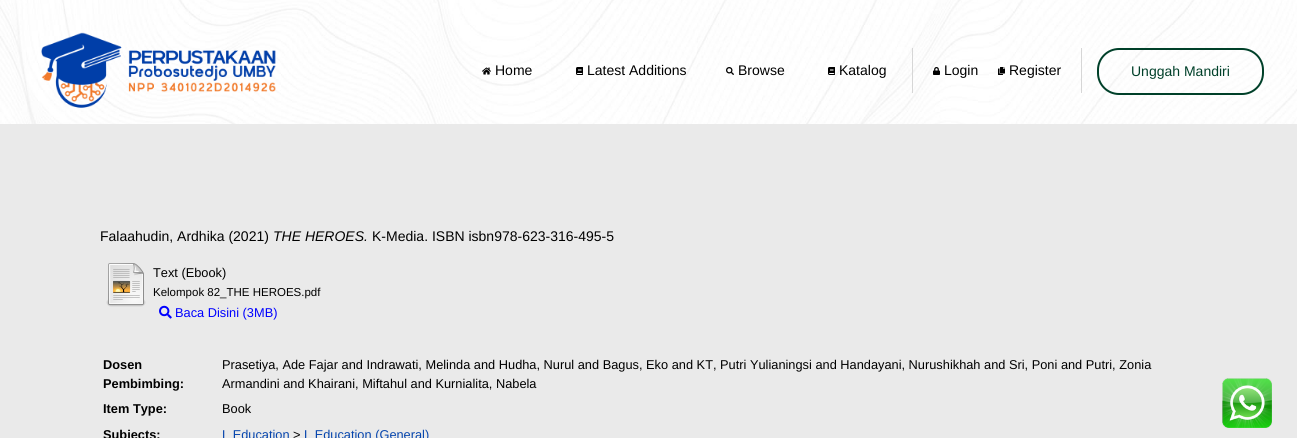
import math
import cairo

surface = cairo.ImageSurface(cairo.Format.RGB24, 1297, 438)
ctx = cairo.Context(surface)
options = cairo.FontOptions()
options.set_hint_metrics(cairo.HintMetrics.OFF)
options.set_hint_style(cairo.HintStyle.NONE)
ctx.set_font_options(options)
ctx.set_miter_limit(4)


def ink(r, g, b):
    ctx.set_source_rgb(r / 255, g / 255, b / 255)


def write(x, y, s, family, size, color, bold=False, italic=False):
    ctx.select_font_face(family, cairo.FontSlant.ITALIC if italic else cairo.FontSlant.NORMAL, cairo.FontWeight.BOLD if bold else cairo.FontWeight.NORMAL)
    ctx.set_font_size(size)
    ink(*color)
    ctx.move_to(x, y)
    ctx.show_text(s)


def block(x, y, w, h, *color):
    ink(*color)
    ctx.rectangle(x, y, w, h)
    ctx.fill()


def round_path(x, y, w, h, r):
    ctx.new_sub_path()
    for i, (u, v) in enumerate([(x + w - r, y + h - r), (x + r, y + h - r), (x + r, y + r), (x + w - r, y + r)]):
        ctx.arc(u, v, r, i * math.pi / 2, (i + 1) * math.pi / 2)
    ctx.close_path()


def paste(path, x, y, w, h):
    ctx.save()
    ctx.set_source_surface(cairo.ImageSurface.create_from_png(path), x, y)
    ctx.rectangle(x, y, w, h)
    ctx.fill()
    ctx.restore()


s1 = dict(family="Liberation Sans", size=14, color=(0, 0, 0))
s2 = dict(family="Liberation Sans", size=14, color=(0, 64, 41))
s3 = dict(family="Liberation Sans", size=14, color=(0, 0, 0), italic=True)
s4 = dict(family="Liberation Sans", size=12.8, color=(0, 0, 0))
s5 = dict(family="Liberation Sans", size=11.5, color=(0, 0, 0))
s6 = dict(family="Liberation Sans", size=12.8, color=(0, 0, 255))
s7 = dict(family="Liberation Sans", size=12.8, color=(0, 0, 0), bold=True)
s8 = dict(family="Liberation Sans", size=12.8, color=(6, 69, 173))

ink(234, 234, 234)
ctx.paint()
paste("pic1.png", 0, 0, 1297, 124)
paste("pic2.png", 41, 32, 235, 76)
paste("pic3.png", 482, 67, 9, 8)
write(495, 75, "Home", **s1)
paste("pic4.png", 576, 67, 7, 8)
write(587, 75, "Latest Additions", **s1)
paste("pic5.png", 726, 67, 8, 8)
write(738, 75, "Browse", **s1)
paste("pic6.png", 828, 67, 7, 8)
write(839, 75, "Katalog", **s1)
block(1081, 48, 1, 45, 214, 214, 214)
block(912, 48, 1, 45, 214, 214, 214)
paste("pic7.png", 933, 67, 7, 8)
write(944, 75, "Login", **s1)
paste("pic8.png", 998, 67, 7, 8)
write(1009, 75, "Register", **s1)
round_path(1098, 49, 165, 45, 21)
ink(0, 64, 41)
ctx.stroke()
write(1131, 76, "Unggah Mandiri", **s2)
write(100, 241, "Falaahudin, Ardhika (2021)", **s1)
write(273, 241, "THE HEROES.", **s3)
write(372, 241, "K-Media. ISBN isbn978-623-316-495-5", **s1)
paste("pic9.png", 106, 263, 40, 44)
write(153, 277, "Text (Ebook)", **s4)
write(153, 296, "Kelompok 82_THE HEROES.pdf", **s5)
paste("pic10.png", 159, 305, 13, 14)
write(175, 317, "Baca Disini (3MB)", **s6)
write(103, 369, "Dosen", **s7)
write(103, 388, "Pembimbing:", **s7)
write(222, 369, "Prasetiya, Ade Fajar and Indrawati, Melinda and Hudha, Nurul and Bagus, Eko and KT, Putri Yulianingsi and Handayani, Nurushikhah and Sri, Poni and Putri, Zonia", **s4)
write(222, 388, "Armandini and Khairani, Miftahul and Kurnialita, Nabela", **s4)
write(103, 413, "Item Type:", **s7)
write(222, 413, "Book", **s4)
write(103, 439, "Subjects:", **s7)
write(222, 439, "L Education", **s8)
write(293, 439, ">", **s4)
write(304, 439, "L Education (General)", **s8)
paste("pic11.png", 1222, 378, 50, 50)
surface.write_to_png("screenshot.png")
